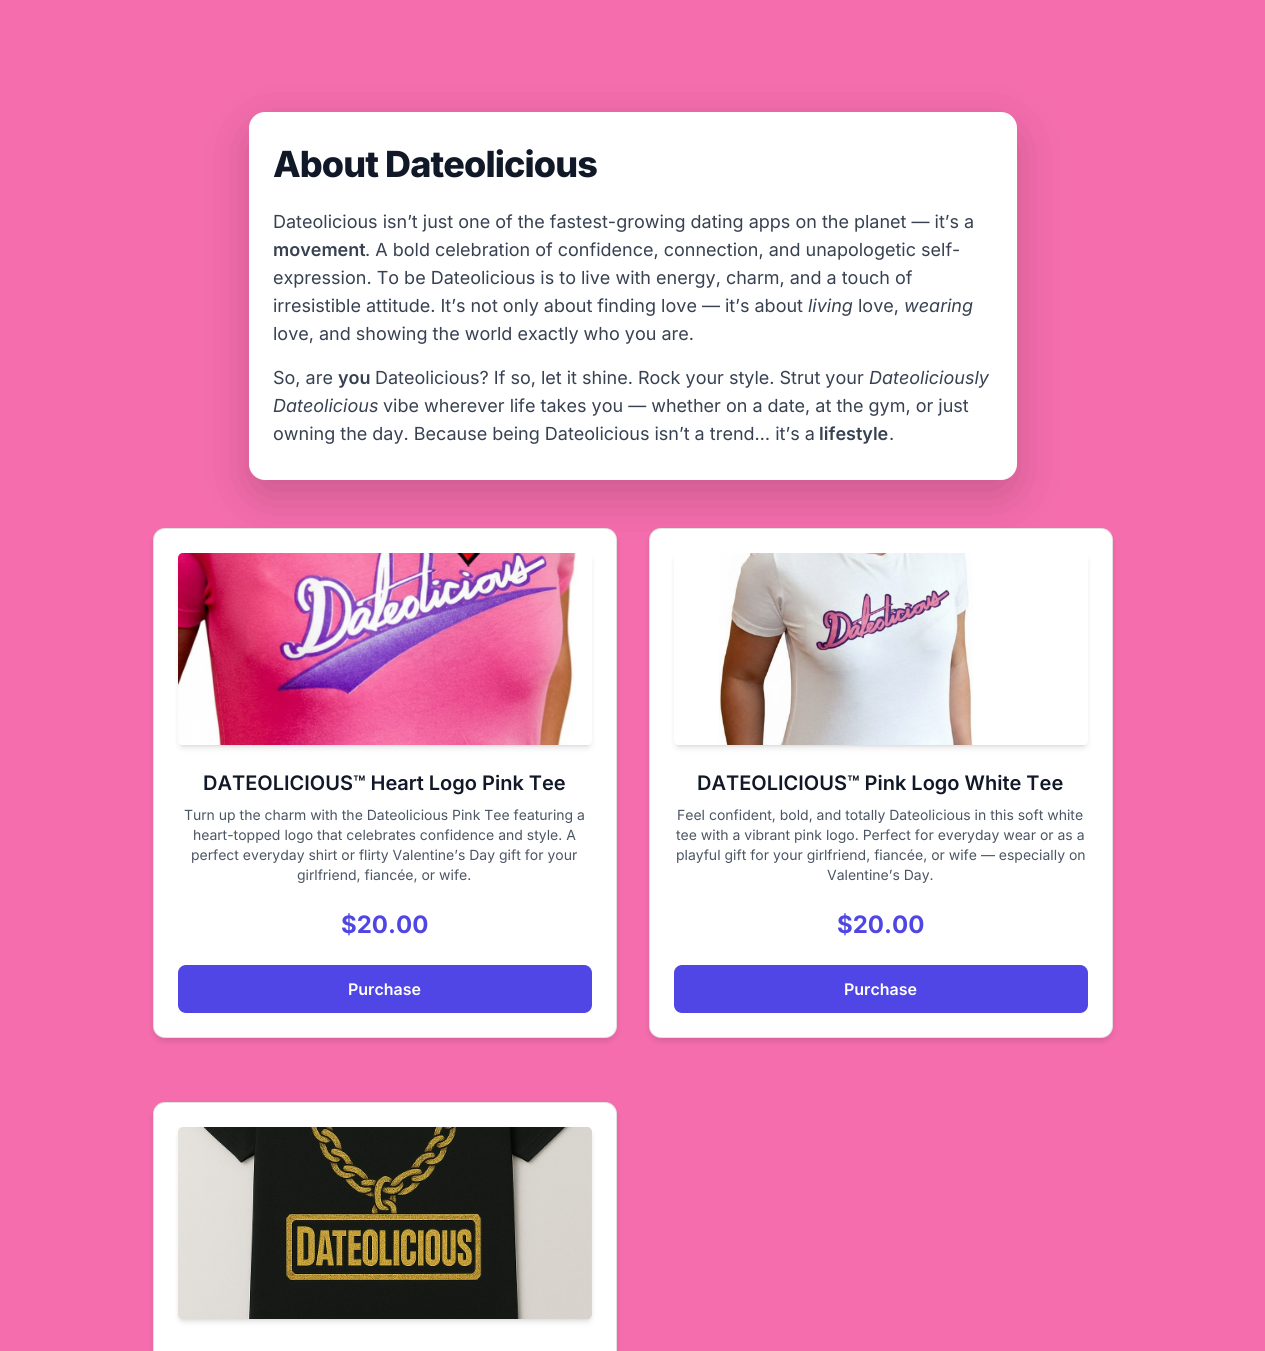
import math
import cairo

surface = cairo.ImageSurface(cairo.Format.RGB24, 1265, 1351)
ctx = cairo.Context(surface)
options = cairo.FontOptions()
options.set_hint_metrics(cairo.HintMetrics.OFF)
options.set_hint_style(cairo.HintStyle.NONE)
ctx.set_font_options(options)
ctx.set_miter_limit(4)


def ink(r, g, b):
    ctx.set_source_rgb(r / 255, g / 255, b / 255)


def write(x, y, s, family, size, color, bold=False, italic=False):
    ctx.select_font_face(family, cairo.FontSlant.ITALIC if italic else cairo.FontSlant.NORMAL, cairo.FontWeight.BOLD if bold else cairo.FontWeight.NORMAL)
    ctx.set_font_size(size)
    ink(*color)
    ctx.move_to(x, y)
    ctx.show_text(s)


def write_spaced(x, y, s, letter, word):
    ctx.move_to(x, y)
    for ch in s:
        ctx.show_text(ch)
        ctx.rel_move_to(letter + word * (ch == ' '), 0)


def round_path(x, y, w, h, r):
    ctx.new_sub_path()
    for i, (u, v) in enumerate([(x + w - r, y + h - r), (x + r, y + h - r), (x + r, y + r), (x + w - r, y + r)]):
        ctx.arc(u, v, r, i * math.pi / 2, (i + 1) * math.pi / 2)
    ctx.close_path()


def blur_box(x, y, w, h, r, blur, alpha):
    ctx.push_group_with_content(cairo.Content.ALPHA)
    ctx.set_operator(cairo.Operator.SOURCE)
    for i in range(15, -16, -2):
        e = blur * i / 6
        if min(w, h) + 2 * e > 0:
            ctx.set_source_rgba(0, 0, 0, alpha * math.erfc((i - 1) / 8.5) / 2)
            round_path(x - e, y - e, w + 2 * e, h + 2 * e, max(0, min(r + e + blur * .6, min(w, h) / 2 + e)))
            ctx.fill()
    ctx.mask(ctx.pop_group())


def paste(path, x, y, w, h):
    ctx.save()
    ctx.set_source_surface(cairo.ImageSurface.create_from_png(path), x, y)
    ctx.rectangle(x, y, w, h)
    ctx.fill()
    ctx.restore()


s1 = dict(family="Inter", size=18, color=(55, 65, 81))
s2 = dict(family="Inter SemiBold", size=18, color=(55, 65, 81))
s3 = dict(family="Inter", size=18, color=(55, 65, 81), italic=True)
s4 = dict(family="Inter SemiBold", size=20, color=(17, 24, 39))
s5 = dict(family="Inter", size=14, color=(75, 85, 99))
s6 = dict(family="Inter", size=24, color=(79, 70, 229), bold=True)
s7 = dict(family="Inter SemiBold", size=16, color=(255, 255, 255))

ink(245, 109, 173)
ctx.paint()
ink(0, 0, 0)
blur_box(249, 128, 768, 368, 16, 24, 0.18)
ink(255, 255, 255)
round_path(249, 112, 768, 368, 16)
ctx.fill()
ctx.select_font_face("Inter ExtraBold")
ctx.set_font_size(36)
ink(17, 24, 39)
write_spaced(273, 177, "About Dateolicious", -0.9, 0)
write(273, 228, "Dateolicious isn’t just one of the fastest-growing dating apps on the planet — it’s a", **s1)
write(273, 256, "movement", **s2)
write(365, 256, ". A bold celebration of confidence, connection, and unapologetic self-", **s1)
write(273, 284, "expression. To be Dateolicious is to live with energy, charm, and a touch of", **s1)
write(273, 312, "irresistible attitude. It’s not only about finding love — it’s about", **s1)
write(808, 312, "living", **s3)
write(858, 312, "love,", **s1)
write(904, 312, "wearing", **s3)
write(273, 340, "love, and showing the world exactly who you are.", **s1)
write(273, 384, "So, are", **s1)
write(338, 384, "you", **s2)
write(375, 384, "Dateolicious? If so, let it shine. Rock your style. Strut your", **s1)
write(869, 384, "Dateoliciously", **s3)
write(273, 412, "Dateolicious", **s3)
write(383, 412, "vibe wherever life takes you — whether on a date, at the gym, or just", **s1)
write(273, 440, "owning the day. Because being Dateolicious isn’t a trend… it’s a", **s1)
write(819, 440, "lifestyle", **s2)
write(889, 440, ".", **s1)
ink(0, 0, 0)
blur_box(153, 532, 464, 510, 12, 3, 0.1)
ink(255, 255, 255)
round_path(153, 528, 464, 510, 12)
ctx.fill()
round_path(153.5, 528.5, 463, 509, 11.5)
ctx.set_source_rgba(0, 0, 0, 0.12)
ctx.set_line_width(1)
ctx.stroke()
ctx.save()
ctx.rectangle(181, 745, 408, 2)
ctx.clip()
ink(0, 0, 0)
blur_box(180, 557, 410, 188, 3, 2, 0.1)
ctx.restore()
ctx.save()
ctx.set_fill_rule(cairo.FillRule.EVEN_ODD)
ctx.new_path()
ctx.move_to(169, 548)
ctx.line_to(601, 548)
ctx.line_to(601, 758)
ctx.line_to(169, 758)
ctx.close_path()
ctx.move_to(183, 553)
ctx.line_to(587, 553)
ctx.curve_to(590, 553, 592, 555, 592, 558)
ctx.line_to(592, 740)
ctx.curve_to(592, 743, 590, 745, 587, 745)
ctx.line_to(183, 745)
ctx.curve_to(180, 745, 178, 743, 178, 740)
ctx.line_to(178, 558)
ctx.curve_to(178, 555, 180, 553, 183, 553)
ctx.close_path()
ctx.clip()
ink(0, 0, 0)
blur_box(179, 558, 412, 190, 4, 3, 0.1)
ctx.restore()
paste("pic1.png", 178, 553, 399, 192)
write(203, 790, "DATEOLICIOUS™ Heart Logo Pink Tee", **s4)
write(184, 820, "Turn up the charm with the Dateolicious Pink Tee featuring a", **s5)
write(193, 840, "heart-topped logo that celebrates confidence and style. A", **s5)
write(191, 860, "perfect everyday shirt or flirty Valentine’s Day gift for your", **s5)
write(297, 880, "girlfriend, fiancée, or wife.", **s5)
write(341, 933, "$20.00", **s6)
round_path(178, 965, 414, 48, 8)
ctx.fill()
write(348, 995, "Purchase", **s7)
ink(0, 0, 0)
blur_box(649, 532, 464, 510, 12, 3, 0.1)
ink(255, 255, 255)
round_path(649, 528, 464, 510, 12)
ctx.fill()
round_path(649.5, 528.5, 463, 509, 11.5)
ctx.set_source_rgba(0, 0, 0, 0.12)
ctx.stroke()
ctx.save()
ctx.rectangle(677, 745, 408, 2)
ctx.clip()
ink(0, 0, 0)
blur_box(676, 557, 410, 188, 3, 2, 0.1)
ctx.restore()
ctx.save()
ctx.set_fill_rule(cairo.FillRule.EVEN_ODD)
ctx.new_path()
ctx.move_to(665, 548)
ctx.line_to(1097, 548)
ctx.line_to(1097, 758)
ctx.line_to(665, 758)
ctx.close_path()
ctx.move_to(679, 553)
ctx.line_to(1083, 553)
ctx.curve_to(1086, 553, 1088, 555, 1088, 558)
ctx.line_to(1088, 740)
ctx.curve_to(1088, 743, 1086, 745, 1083, 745)
ctx.line_to(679, 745)
ctx.curve_to(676, 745, 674, 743, 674, 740)
ctx.line_to(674, 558)
ctx.curve_to(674, 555, 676, 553, 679, 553)
ctx.close_path()
ctx.clip()
ink(0, 0, 0)
blur_box(675, 558, 412, 190, 4, 3, 0.1)
ctx.restore()
paste("pic2.png", 719, 553, 254, 192)
write(697, 790, "DATEOLICIOUS™ Pink Logo White Tee", **s4)
write(677, 820, "Feel confident, bold, and totally Dateolicious in this soft white", **s5)
write(676, 840, "tee with a vibrant pink logo. Perfect for everyday wear or as a", **s5)
write(676, 860, "playful gift for your girlfriend, fiancée, or wife — especially on", **s5)
write(827, 880, "Valentine’s Day.", **s5)
write(837, 933, "$20.00", **s6)
round_path(674, 965, 414, 48, 8)
ctx.fill()
write(844, 995, "Purchase", **s7)
ink(0, 0, 0)
blur_box(153, 1106, 464, 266, 12, 3, 0.1)
ink(255, 255, 255)
round_path(153, 1102, 464, 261, 12)
ctx.fill()
round_path(153.5, 1102.5, 463, 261, 11.5)
ctx.set_source_rgba(0, 0, 0, 0.12)
ctx.stroke()
ink(0, 0, 0)
blur_box(180, 1131, 410, 188, 3, 2, 0.1)
blur_box(179, 1132, 412, 190, 4, 3, 0.1)
paste("pic3.png", 178, 1127, 414, 192)
surface.write_to_png("screenshot.png")
